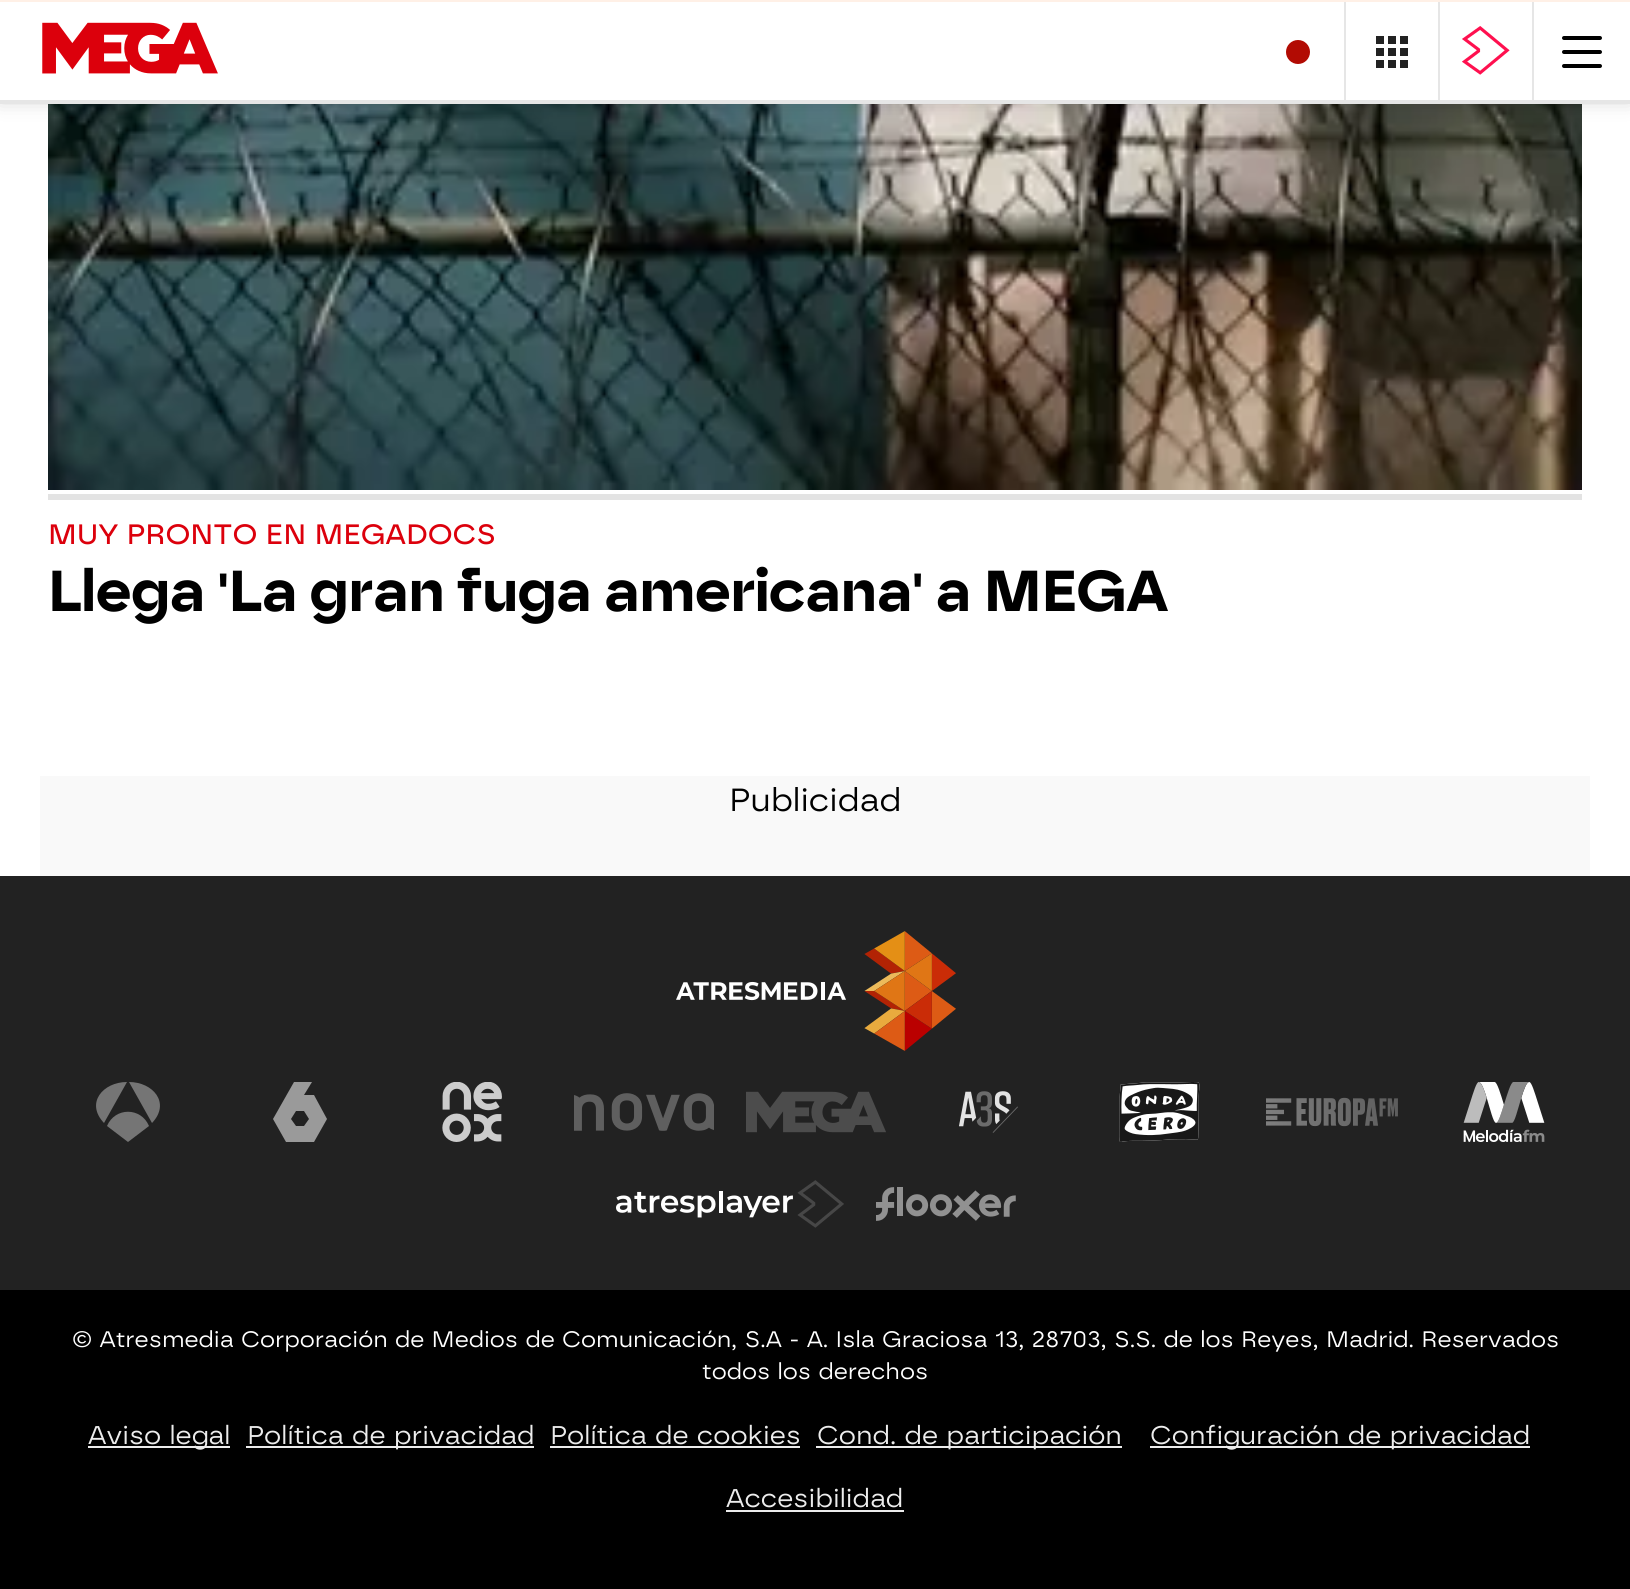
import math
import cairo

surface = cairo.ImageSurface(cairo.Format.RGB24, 1630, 1589)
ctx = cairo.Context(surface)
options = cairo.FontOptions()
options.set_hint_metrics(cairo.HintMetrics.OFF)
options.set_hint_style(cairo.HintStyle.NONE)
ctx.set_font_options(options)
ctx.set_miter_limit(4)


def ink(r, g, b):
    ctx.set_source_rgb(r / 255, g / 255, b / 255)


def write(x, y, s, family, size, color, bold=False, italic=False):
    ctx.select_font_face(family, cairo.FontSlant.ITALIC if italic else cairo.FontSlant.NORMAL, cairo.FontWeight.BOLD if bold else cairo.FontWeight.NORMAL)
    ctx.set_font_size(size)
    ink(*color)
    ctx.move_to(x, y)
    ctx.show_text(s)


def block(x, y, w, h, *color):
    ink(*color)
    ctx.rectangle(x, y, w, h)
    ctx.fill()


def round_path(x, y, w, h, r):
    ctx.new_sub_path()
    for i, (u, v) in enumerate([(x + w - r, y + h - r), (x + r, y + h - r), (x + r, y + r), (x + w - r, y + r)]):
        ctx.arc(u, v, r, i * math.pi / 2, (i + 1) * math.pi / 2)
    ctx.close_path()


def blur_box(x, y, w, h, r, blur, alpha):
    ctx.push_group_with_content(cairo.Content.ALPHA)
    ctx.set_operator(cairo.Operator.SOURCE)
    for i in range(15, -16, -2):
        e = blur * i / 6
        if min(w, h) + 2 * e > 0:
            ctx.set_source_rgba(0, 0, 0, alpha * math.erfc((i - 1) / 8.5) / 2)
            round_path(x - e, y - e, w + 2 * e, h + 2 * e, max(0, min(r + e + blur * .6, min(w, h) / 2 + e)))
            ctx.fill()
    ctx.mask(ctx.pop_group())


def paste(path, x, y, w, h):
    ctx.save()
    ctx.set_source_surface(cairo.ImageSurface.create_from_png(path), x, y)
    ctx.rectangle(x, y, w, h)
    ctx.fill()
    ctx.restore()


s1 = dict(family="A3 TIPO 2 Medium", size=28, color=(220, 0, 12))
s2 = dict(family="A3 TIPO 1", size=57.6, color=(0, 0, 0), bold=True)
s3 = dict(family="A3 TIPO 2", size=32, color=(0, 0, 0))
s4 = dict(family="A3 TIPO 2", size=22.4, color=(255, 255, 255))
s5 = dict(family="A3 TIPO 2", size=25.6, color=(236, 236, 236))

ink(255, 255, 255)
ctx.paint()
paste("pic4.png", 48, 104, 1534, 386)
ink(0, 0, 0)
blur_box(0, 0, 1630, 100, 0, 10, 0.2)
block(0, 0, 1630, 2, 255, 240, 230)
block(0, 2, 1630, 98, 255, 255, 255)
block(0, 100, 1630, 4, 230, 230, 230)
paste("pic1.png", 42, 22, 176, 52)
block(1344, 2, 2, 98, 230, 230, 230)
ink(178, 11, 3)
ctx.arc(1298, 52, 12, 0, 2 * math.pi)
ctx.fill()
paste("pic2.png", 1376, 36, 32, 32)
block(1532, 2, 2, 98, 230, 230, 230)
block(1438, 2, 2, 98, 230, 230, 230)
paste("pic3.png", 1462, 26, 48, 49)
ink(0, 0, 0)
round_path(1562, 36, 40, 4, 2)
ctx.fill()
round_path(1562, 50, 40, 4, 2)
ctx.fill()
round_path(1562, 64, 40, 4, 2)
ctx.fill()
block(48, 494, 1534, 6, 227, 227, 227)
write(48, 544, "MUY PRONTO EN MEGADOCS", **s1)
write(48, 611, "Llega 'La gran fuga americana' a MEGA", **s2)
block(40, 776, 1550, 100, 249, 249, 249)
write(729, 811, "Publicidad", **s3)
block(0, 876, 1630, 414, 34, 34, 34)
paste("pic5.png", 676, 931, 280, 120)
ink(117, 117, 117)
ctx.new_path()
ctx.move_to(127, 1082)
ctx.curve_to(103, 1082, 85, 1103, 104, 1123)
ctx.close_path()
ctx.fill()
ctx.new_path()
ctx.move_to(152, 1123)
ctx.curve_to(171, 1103, 153, 1082, 129, 1082)
ctx.close_path()
ctx.fill()
ctx.new_path()
ctx.move_to(149, 1126)
ctx.line_to(128, 1142)
ctx.line_to(107, 1126)
ctx.curve_to(115, 1107, 141, 1107, 149, 1126)
ctx.close_path()
ctx.fill()
ink(154, 154, 154)
ctx.new_path()
ctx.move_to(314, 1095)
ctx.line_to(304, 1095)
ctx.line_to(312, 1082)
ctx.line_to(294, 1082)
ctx.line_to(273, 1119)
ctx.line_to(286, 1142)
ctx.line_to(314, 1142)
ctx.line_to(327, 1119)
ctx.close_path()
ctx.move_to(304, 1126)
ctx.line_to(296, 1126)
ctx.line_to(291, 1119)
ctx.line_to(296, 1111)
ctx.line_to(304, 1111)
ctx.line_to(309, 1119)
ctx.close_path()
ctx.fill()
paste("pic6.png", 442, 1082, 60, 60)
paste("pic7.png", 574, 1093, 140, 38)
paste("pic8.png", 746, 1091, 140, 42)
paste("pic9.png", 959, 1091, 59, 42)
paste("pic10.png", 1119, 1082, 81, 60)
paste("pic11.png", 1266, 1097, 132, 30)
paste("pic12.png", 1463, 1082, 82, 60)
paste("pic13.png", 616, 1180, 228, 48)
paste("pic14.png", 876, 1187, 140, 34)
block(0, 1290, 1630, 299, 0, 0, 0)
write(72, 1347, "© Atresmedia Corporación de Medios de Comunicación, S.A - A. Isla Graciosa 13, 28703, S.S. de los Reyes, Madrid. Reservados", **s4)
write(702, 1379, "todos los derechos", **s4)
block(88, 1446, 142, 2, 236, 236, 236)
write(88, 1444, "Aviso legal", **s5)
block(246, 1446, 288, 2, 236, 236, 236)
write(247, 1444, "Política de privacidad", **s5)
write(550, 1444, "Política de cookies", **s5)
block(550, 1446, 250, 2, 236, 236, 236)
block(816, 1446, 306, 2, 236, 236, 236)
write(817, 1444, "Cond. de participación", **s5)
block(1150, 1446, 380, 2, 236, 236, 236)
write(1150, 1444, "Configuración de privacidad", **s5)
write(726, 1507, "Accesibilidad", **s5)
block(726, 1510, 178, 2, 236, 236, 236)
surface.write_to_png("screenshot.png")
